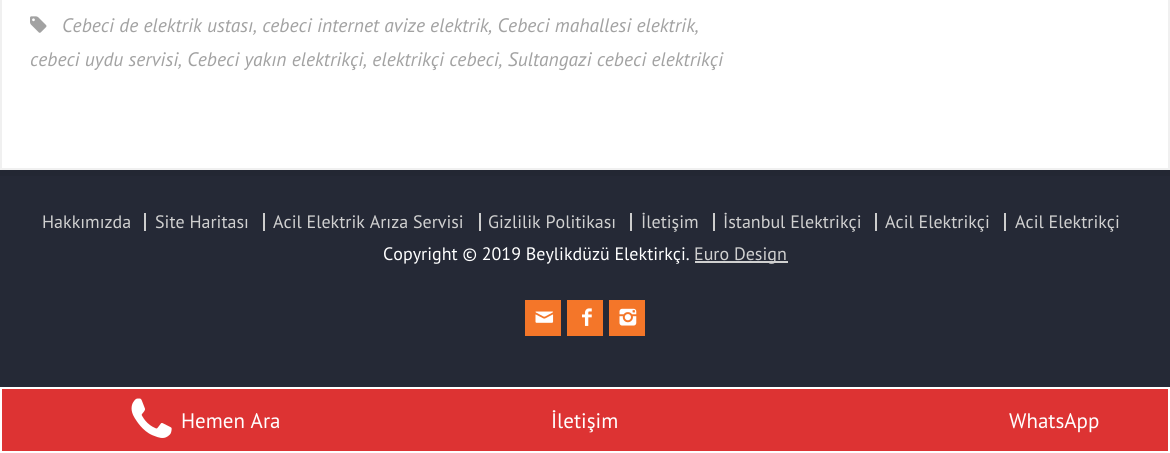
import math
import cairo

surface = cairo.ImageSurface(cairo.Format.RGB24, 1170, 453)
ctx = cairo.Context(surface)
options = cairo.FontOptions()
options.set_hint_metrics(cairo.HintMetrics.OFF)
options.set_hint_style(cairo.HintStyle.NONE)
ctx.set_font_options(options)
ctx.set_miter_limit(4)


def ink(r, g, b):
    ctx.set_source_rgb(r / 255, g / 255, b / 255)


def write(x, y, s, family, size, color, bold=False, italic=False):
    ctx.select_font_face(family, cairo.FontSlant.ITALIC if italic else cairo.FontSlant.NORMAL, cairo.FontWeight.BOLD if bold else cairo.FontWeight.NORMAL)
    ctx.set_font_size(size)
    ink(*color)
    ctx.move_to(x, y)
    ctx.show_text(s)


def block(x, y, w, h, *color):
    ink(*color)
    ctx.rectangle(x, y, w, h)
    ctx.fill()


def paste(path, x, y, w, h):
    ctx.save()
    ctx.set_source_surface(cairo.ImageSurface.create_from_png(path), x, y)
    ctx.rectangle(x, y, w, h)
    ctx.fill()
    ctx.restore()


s1 = dict(family="PT Sans", size=19.5, color=(162, 162, 162), italic=True)
s2 = dict(family="PT Sans", size=18, color=(208, 208, 208))
s3 = dict(family="PT Sans", size=18, color=(255, 255, 255))
s4 = dict(family="PT Sans", size=21, color=(255, 255, 255))

ink(37, 41, 54)
ctx.paint()
ink(255, 255, 255)
ctx.rectangle(1, -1, 1168, 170)
ctx.fill_preserve()
ink(240, 240, 240)
ctx.stroke()
paste("pic1.png", 30, 16, 17, 17)
write(62, 32, "Cebeci de elektrik ustası, cebeci internet avize elektrik, Cebeci mahallesi elektrik,", **s1)
write(30, 66, "cebeci uydu servisi, Cebeci yakın elektrikçi, elektrikçi cebeci, Sultangazi cebeci elektrikçi", **s1)
block(0, 170, 1170, 6, 35, 39, 51)
write(42, 228, "Hakkımızda", **s2)
block(144, 213, 2, 18, 205, 205, 205)
write(155, 228, "Site Haritası", **s2)
block(263, 213, 2, 18, 205, 205, 205)
write(273, 228, "Acil Elektrik Arıza Servisi", **s2)
block(479, 213, 2, 18, 205, 205, 205)
write(488, 228, "Gizlilik Politikası", **s2)
block(630, 213, 2, 18, 205, 205, 205)
write(641, 228, "İletişim", **s2)
block(713, 213, 2, 18, 205, 205, 205)
write(723, 228, "İstanbul Elektrikçi", **s2)
block(875, 213, 2, 18, 205, 205, 205)
write(885, 228, "Acil Elektrikçi", **s2)
block(1004, 213, 2, 18, 205, 205, 205)
write(1015, 228, "Acil Elektrikçi", **s2)
write(383, 260, "Copyright © 2019 Beylikdüzü Elektirkçi.", **s3)
block(695, 261, 93, 2, 208, 208, 208)
write(694, 260, "Euro Design", **s2)
block(525, 300, 36, 36, 244, 118, 41)
paste("pic2.png", 535, 311, 19, 12)
block(567, 300, 36, 36, 244, 118, 41)
paste("pic3.png", 582, 308, 10, 18)
block(609, 300, 36, 36, 244, 118, 41)
paste("pic4.png", 619, 308, 18, 18)
ink(221, 51, 51)
ctx.rectangle(1, 388, 1168, 64)
ctx.fill_preserve()
ink(255, 255, 255)
ctx.stroke()
paste("pic5.png", 131, 398, 41, 40)
write(181, 428, "Hemen Ara", **s4)
write(551, 428, "İletişim", **s4)
write(1009, 428, "WhatsApp", **s4)
surface.write_to_png("screenshot.png")
